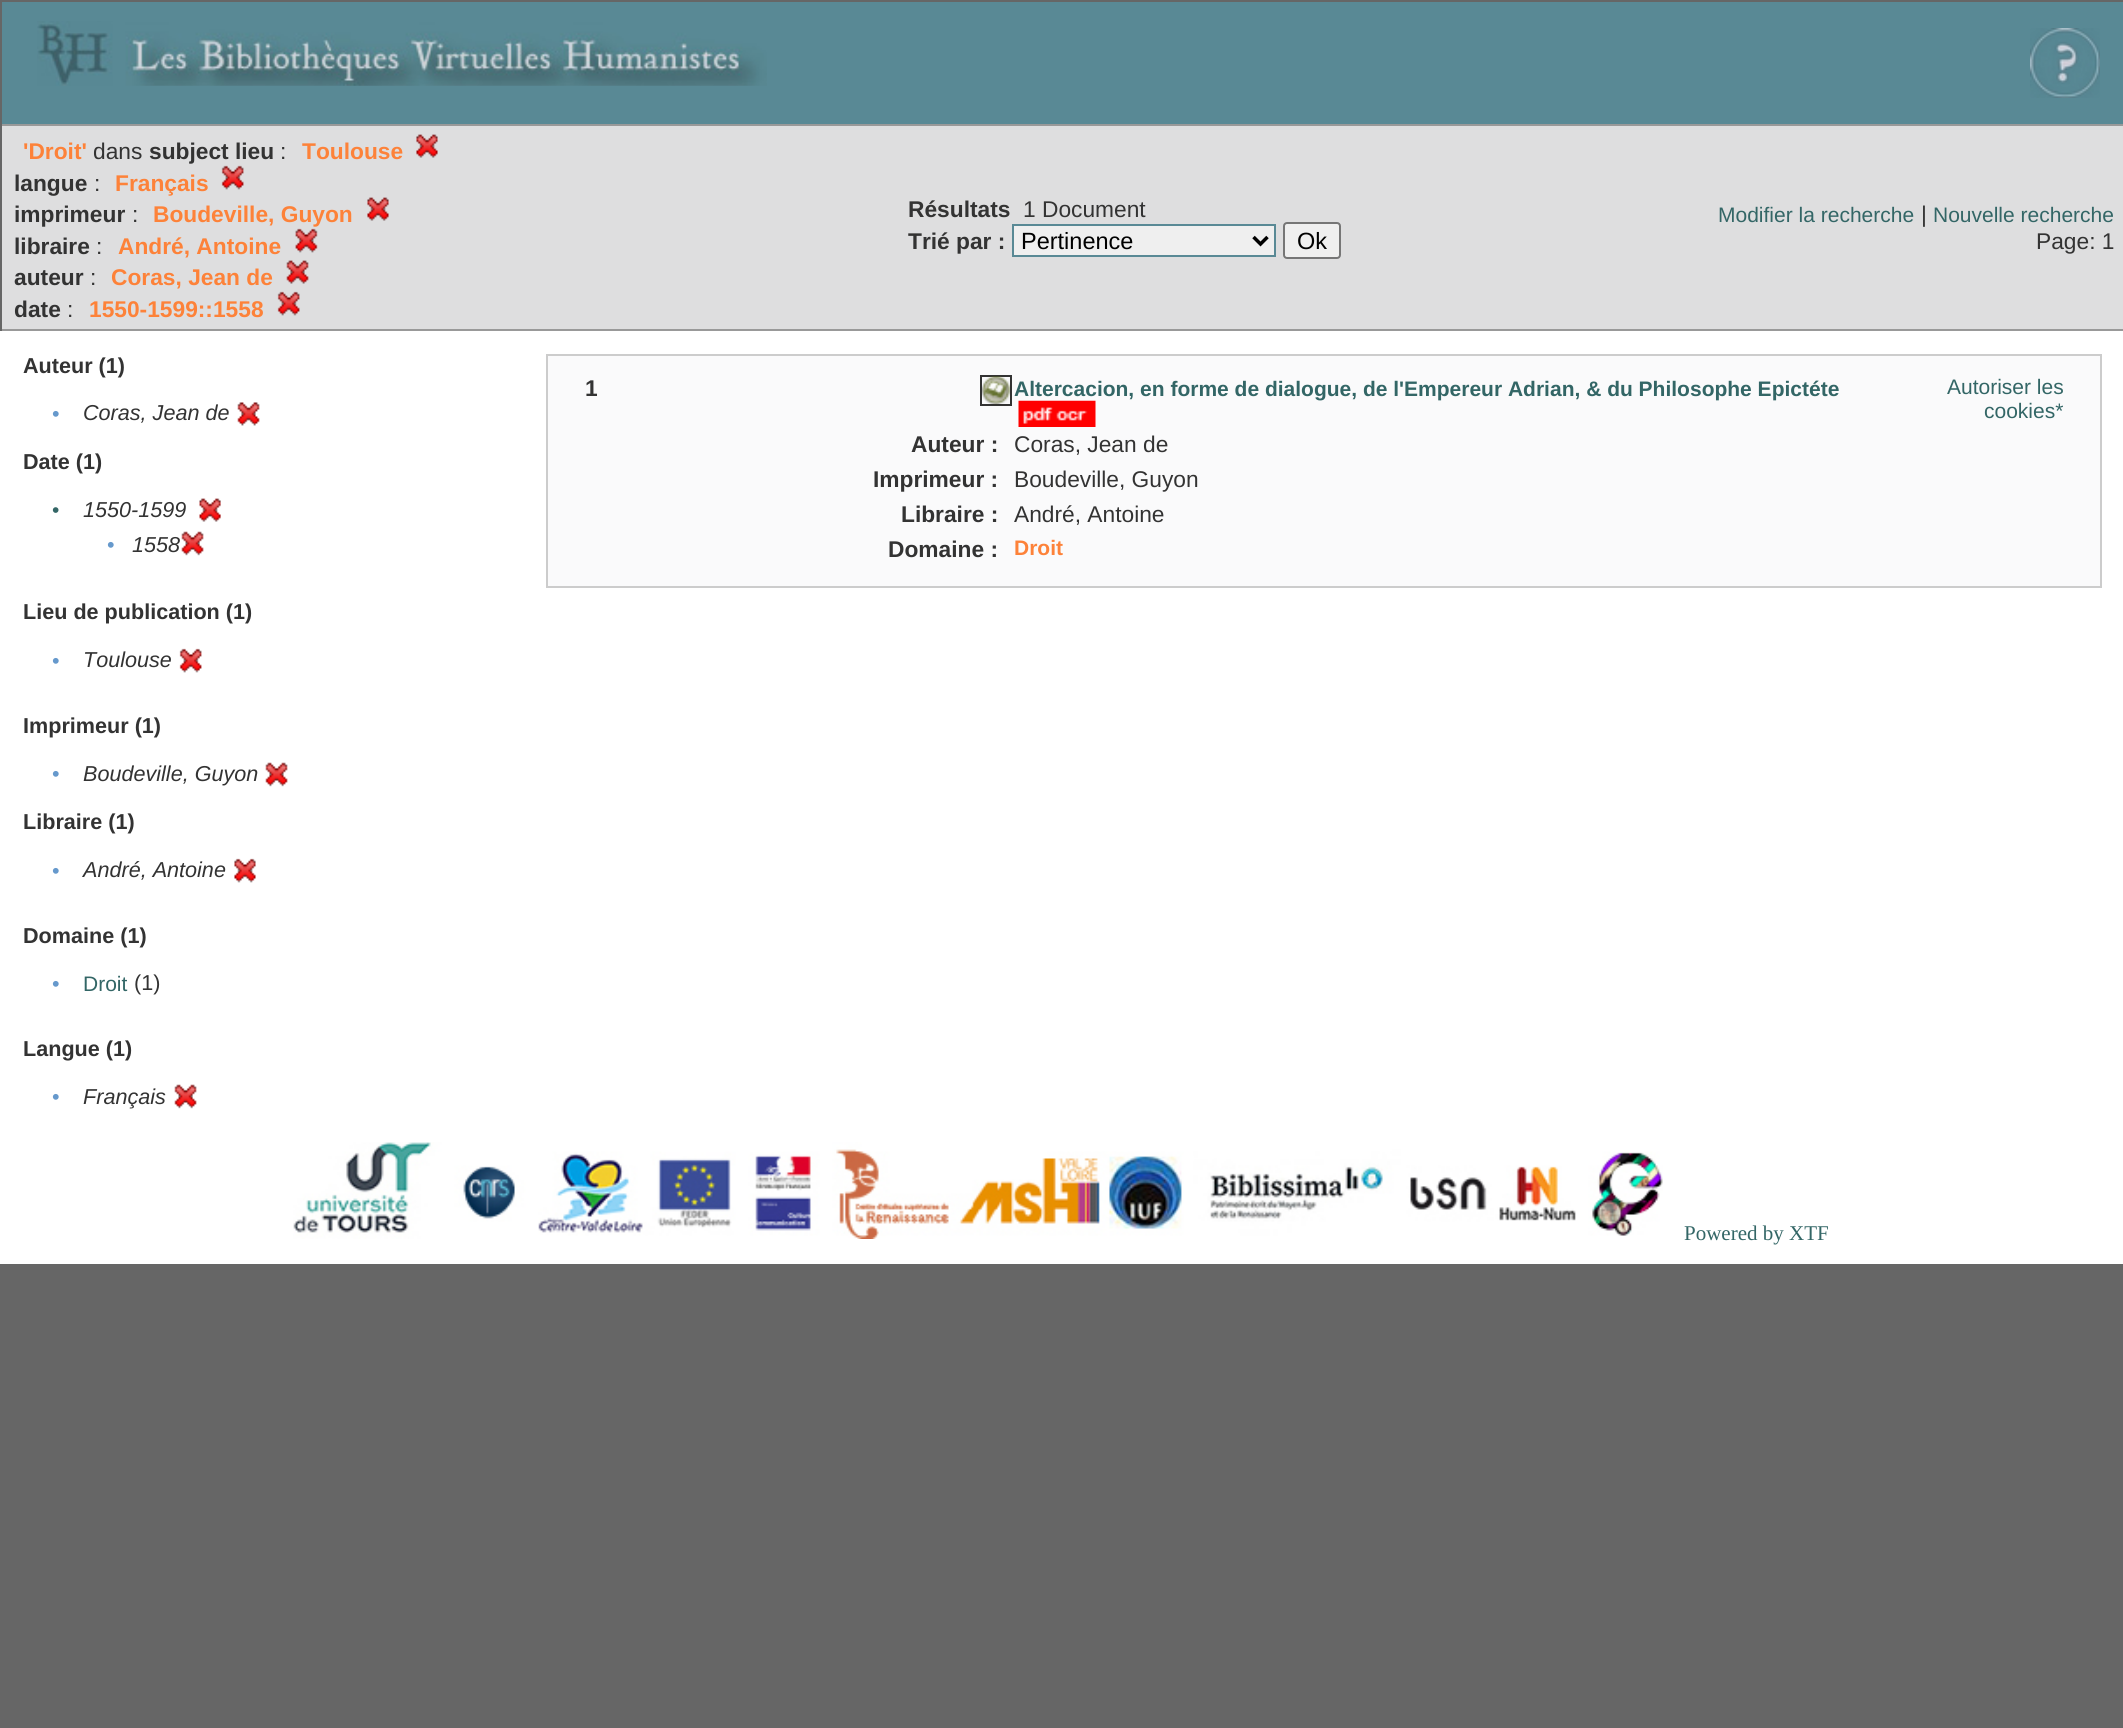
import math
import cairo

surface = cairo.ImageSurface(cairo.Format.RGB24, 2123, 1728)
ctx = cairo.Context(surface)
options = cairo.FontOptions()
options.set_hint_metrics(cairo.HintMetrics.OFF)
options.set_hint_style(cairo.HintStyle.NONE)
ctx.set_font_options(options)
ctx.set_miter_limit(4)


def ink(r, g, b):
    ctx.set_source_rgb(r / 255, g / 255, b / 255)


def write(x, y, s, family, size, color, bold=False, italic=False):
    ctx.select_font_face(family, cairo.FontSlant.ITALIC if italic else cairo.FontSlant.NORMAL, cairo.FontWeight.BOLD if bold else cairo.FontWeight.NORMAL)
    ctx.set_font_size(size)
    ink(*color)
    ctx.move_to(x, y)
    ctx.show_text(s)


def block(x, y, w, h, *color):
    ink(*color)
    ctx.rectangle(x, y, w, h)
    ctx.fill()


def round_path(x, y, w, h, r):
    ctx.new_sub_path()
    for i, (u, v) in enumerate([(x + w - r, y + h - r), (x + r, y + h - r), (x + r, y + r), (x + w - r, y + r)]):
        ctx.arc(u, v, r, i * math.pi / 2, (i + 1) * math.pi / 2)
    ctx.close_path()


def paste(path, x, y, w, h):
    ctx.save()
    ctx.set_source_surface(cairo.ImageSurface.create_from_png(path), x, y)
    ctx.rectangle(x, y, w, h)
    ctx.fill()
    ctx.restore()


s1 = dict(family="Liberation Sans", size=22.75, color=(253, 130, 57), bold=True)
s2 = dict(family="Liberation Sans", size=22.75, color=(51, 51, 51))
s3 = dict(family="Liberation Sans", size=22.75, color=(51, 51, 51), bold=True)
s4 = dict(family="Liberation Sans", size=23.5, color=(0, 0, 0))
s5 = dict(family="Liberation Sans", size=21, color=(51, 102, 102))
s6 = dict(family="Liberation Sans", size=21.6, color=(51, 51, 51), bold=True)
s7 = dict(family="Liberation Sans", size=21.6, color=(102, 153, 204))
s8 = dict(family="Liberation Sans", size=21.6, color=(51, 51, 51), italic=True)
s9 = dict(family="Liberation Sans", size=21.6, color=(51, 51, 51))
s10 = dict(family="Liberation Sans", size=21, color=(51, 102, 102), bold=True)
s11 = dict(family="Liberation Sans", size=21, color=(253, 130, 57), bold=True)
s12 = dict(family="Liberation Serif", size=21, color=(51, 102, 102))

ink(102, 102, 102)
ctx.paint()
block(2, 2, 2121, 122, 89, 137, 149)
paste("pic1.png", 37, 21, 730, 65)
paste("pic2.png", 2030, 28, 70, 70)
block(2, 126, 2121, 203, 222, 222, 223)
block(0, 124, 2123, 2, 153, 153, 153)
block(0, 329, 2123, 2, 153, 153, 153)
block(0, 124, 2, 207, 102, 102, 102)
write(23, 159, "'Droit'", **s1)
write(93, 159, "dans", **s2)
write(149, 159, "subject lieu", **s3)
write(280, 159, ":", **s2)
write(302, 159, "Toulouse", **s1)
paste("pic3.png", 416, 134, 22, 24)
write(14, 191, "langue", **s3)
write(94, 191, ":", **s2)
write(115, 191, "Français", **s1)
paste("pic4.png", 221, 165, 23, 25)
write(14, 222, "imprimeur", **s3)
write(132, 222, ":", **s2)
write(153, 222, "Boudeville, Guyon", **s1)
paste("pic3.png", 367, 197, 22, 24)
write(14, 254, "libraire", **s3)
write(96, 254, ":", **s2)
write(118, 254, "André, Antoine", **s1)
paste("pic5.png", 295, 228, 23, 25)
write(14, 285, "auteur", **s3)
write(90, 285, ":", **s2)
write(111, 285, "Coras, Jean de", **s1)
paste("pic6.png", 286, 260, 23, 24)
write(14, 317, "date", **s3)
write(67, 317, ":", **s2)
write(89, 317, "1550-1599::1558", **s1)
paste("pic7.png", 277, 291, 23, 25)
write(908, 217, "Résultats", **s3)
write(1023, 217, "1 Document", **s2)
write(908, 249, "Trié par :", **s3)
ink(239, 239, 239)
ctx.rectangle(1013, 225, 262, 31)
ctx.fill_preserve()
ink(89, 137, 149)
ctx.stroke()
ctx.new_path()
ctx.move_to(1253.5, 237)
ctx.line_to(1260.5, 244)
ctx.line_to(1267.5, 237)
ink(0, 0, 0)
ctx.set_line_width(3.5)
ctx.stroke()
write(1021, 249, "Pertinence", **s4)
ink(239, 239, 239)
round_path(1284, 223, 56, 35, 3)
ctx.fill_preserve()
ink(118, 118, 118)
ctx.set_line_width(2)
ctx.stroke()
write(1297, 249, "Ok", **s4)
write(1718, 222, "Modifier la recherche", **s5)
write(1921, 222, "|", **s2)
write(1933, 222, "Nouvelle recherche", **s5)
write(2036, 249, "Page: 1", **s2)
block(0, 331, 2123, 933, 255, 255, 255)
write(23, 373, "Auteur (1)", **s6)
write(52, 421, "•", **s7)
write(83, 420, "Coras, Jean de", **s8)
paste("pic8.png", 237, 402, 23, 24)
write(23, 469, "Date (1)", **s6)
write(52, 517, "•", **s5)
write(83, 517, "1550-1599", **s8)
paste("pic9.png", 199, 498, 22, 24)
write(107, 552, "•", **s7)
write(132, 552, "1558", **s8)
paste("pic10.png", 181, 531, 23, 25)
write(23, 619, "Lieu de publication (1)", **s6)
write(52, 668, "•", **s7)
write(83, 667, "Toulouse", **s8)
paste("pic11.png", 179, 648, 23, 25)
write(23, 733, "Imprimeur (1)", **s6)
write(52, 781, "•", **s7)
write(83, 781, "Boudeville, Guyon", **s8)
paste("pic12.png", 265, 762, 23, 25)
write(23, 829, "Libraire (1)", **s6)
write(52, 878, "•", **s7)
write(83, 877, "André, Antoine", **s8)
paste("pic13.png", 234, 858, 22, 25)
write(23, 943, "Domaine (1)", **s6)
write(52, 991, "•", **s7)
write(83, 991, "Droit", **s5)
write(134, 990, "(1)", **s9)
write(23, 1056, "Langue (1)", **s6)
write(52, 1104, "•", **s7)
write(83, 1104, "Français", **s8)
paste("pic10.png", 174, 1084, 23, 25)
ink(250, 250, 251)
ctx.rectangle(547, 355, 1554, 232)
ctx.fill_preserve()
ink(204, 204, 204)
ctx.stroke()
write(585, 396, "1", **s3)
ctx.rectangle(981, 376, 30, 29)
ctx.stroke()
paste("pic14.png", 982, 376, 28, 29)
write(1014, 396, "Altercacion, en forme de dialogue, de l'Empereur Adrian, & du Philosophe Epictéte", **s10)
paste("pic15.png", 1018, 400, 78, 27)
write(1947, 394, "Autoriser les", **s5)
write(1984, 418, "cookies*", **s5)
write(911, 452, "Auteur :", **s3)
write(1014, 452, "Coras, Jean de", **s2)
write(873, 487, "Imprimeur :", **s3)
write(1014, 487, "Boudeville, Guyon", **s2)
write(901, 522, "Libraire :", **s3)
write(1014, 522, "André, Antoine", **s2)
write(888, 557, "Domaine :", **s3)
write(1014, 555, "Droit", **s11)
paste("pic16.png", 293, 1142, 1370, 97)
write(1684, 1240, "Powered by XTF", **s12)
surface.write_to_png("screenshot.png")
